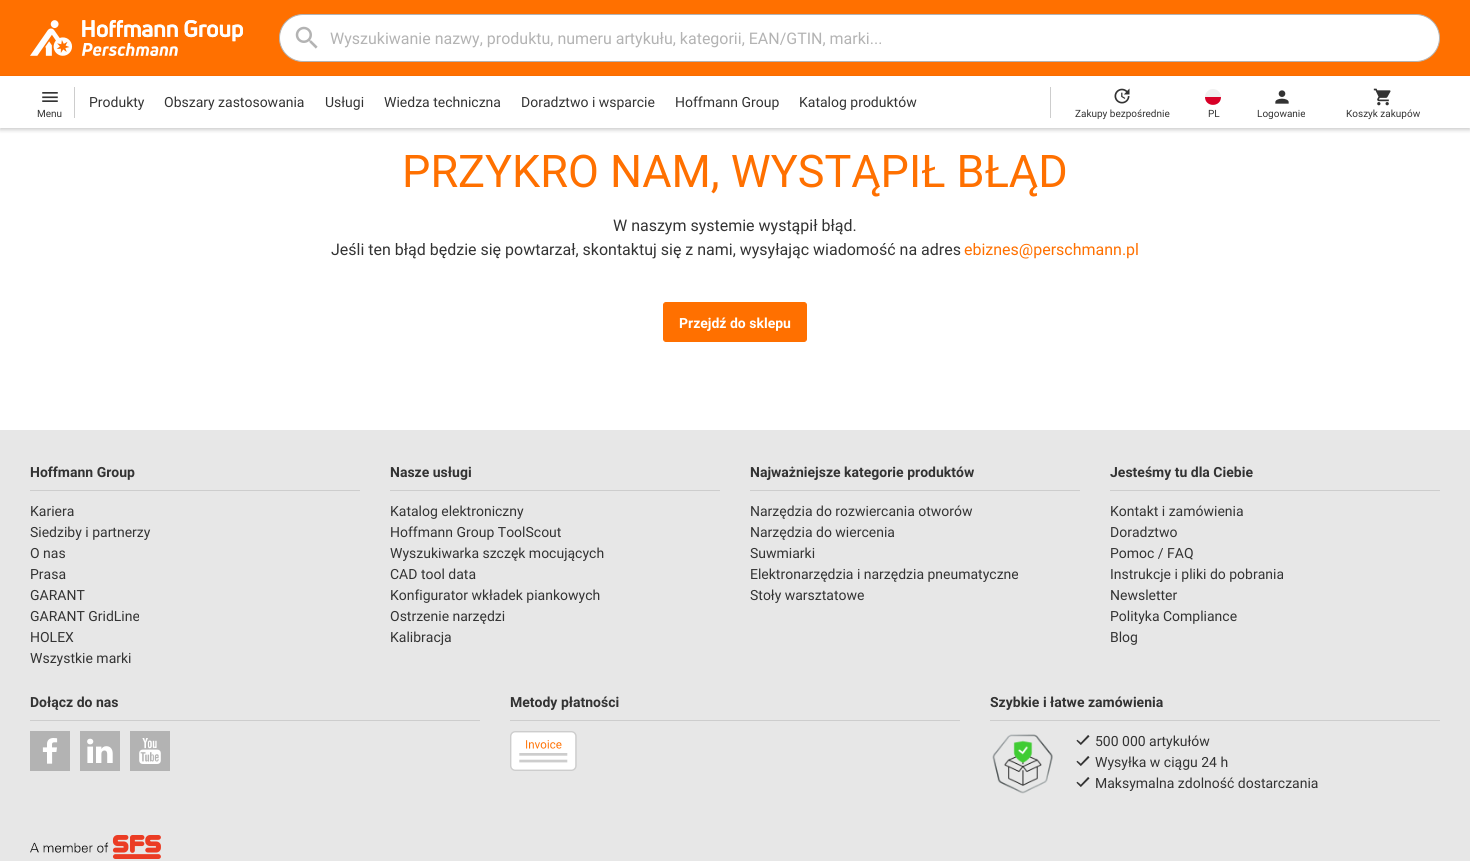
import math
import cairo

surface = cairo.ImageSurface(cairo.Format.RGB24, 1470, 861)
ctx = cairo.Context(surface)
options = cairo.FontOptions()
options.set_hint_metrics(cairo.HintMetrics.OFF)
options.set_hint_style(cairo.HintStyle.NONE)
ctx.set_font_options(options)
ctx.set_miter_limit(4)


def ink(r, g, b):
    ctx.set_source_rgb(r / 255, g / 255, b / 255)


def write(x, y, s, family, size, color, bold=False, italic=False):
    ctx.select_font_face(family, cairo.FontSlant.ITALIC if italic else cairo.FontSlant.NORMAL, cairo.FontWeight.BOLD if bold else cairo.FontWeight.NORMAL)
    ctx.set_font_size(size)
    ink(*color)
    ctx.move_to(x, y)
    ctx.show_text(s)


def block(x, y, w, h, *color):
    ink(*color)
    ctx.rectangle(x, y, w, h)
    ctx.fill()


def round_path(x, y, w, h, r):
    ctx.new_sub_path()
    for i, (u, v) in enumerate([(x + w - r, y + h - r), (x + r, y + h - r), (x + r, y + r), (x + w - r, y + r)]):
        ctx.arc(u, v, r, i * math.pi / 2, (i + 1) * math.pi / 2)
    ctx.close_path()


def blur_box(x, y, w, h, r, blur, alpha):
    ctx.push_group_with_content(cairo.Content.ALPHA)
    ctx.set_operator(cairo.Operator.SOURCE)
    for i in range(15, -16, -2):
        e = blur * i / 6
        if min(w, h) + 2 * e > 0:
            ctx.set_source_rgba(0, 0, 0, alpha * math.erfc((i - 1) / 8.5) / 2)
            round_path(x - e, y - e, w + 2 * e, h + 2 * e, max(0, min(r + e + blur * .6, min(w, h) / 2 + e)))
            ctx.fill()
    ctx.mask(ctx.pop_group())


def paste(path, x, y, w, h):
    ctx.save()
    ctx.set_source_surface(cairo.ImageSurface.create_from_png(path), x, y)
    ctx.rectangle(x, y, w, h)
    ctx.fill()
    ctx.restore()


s1 = dict(family="Roboto", size=16, color=(179, 179, 179))
s2 = dict(family="Roboto", size=14, color=(51, 51, 51))
s3 = dict(family="Roboto", size=10, color=(51, 51, 51))
s4 = dict(family="Roboto", size=45, color=(255, 112, 0))
s5 = dict(family="Roboto", size=16, color=(51, 51, 51))
s6 = dict(family="Roboto", size=16, color=(255, 112, 0))
s7 = dict(family="Roboto", size=14, color=(255, 255, 255), bold=True)
s8 = dict(family="Roboto", size=14, color=(51, 51, 51), bold=True)

ink(255, 255, 255)
ctx.paint()
block(0, 0, 1470, 76, 255, 112, 0)
paste("pic1.png", 30, 20, 213, 36)
ink(255, 255, 255)
round_path(279.5, 14.5, 1160, 47, 23.5)
ctx.fill_preserve()
ink(179, 179, 179)
ctx.set_line_width(1)
ctx.stroke()
paste("pic2.png", 295, 26, 23, 23)
write(330, 44, "Wyszukiwanie nazwy, produktu, numeru artykułu, kategorii, EAN/GTIN, marki...", **s1)
ctx.save()
ctx.set_fill_rule(cairo.FillRule.EVEN_ODD)
ctx.new_path()
ctx.move_to(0, 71)
ctx.line_to(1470, 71)
ctx.line_to(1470, 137)
ctx.line_to(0, 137)
ctx.close_path()
ctx.move_to(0, 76)
ctx.line_to(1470, 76)
ctx.line_to(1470, 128)
ctx.line_to(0, 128)
ctx.close_path()
ctx.clip()
ink(0, 0, 0)
blur_box(0, 78, 1470, 52, 0, 2, 0.2)
ctx.restore()
write(89, 107, "Produkty", **s2)
write(164, 107, "Obszary zastosowania", **s2)
write(325, 107, "Usługi", **s2)
write(384, 107, "Wiedza techniczna", **s2)
write(521, 107, "Doradztwo i wsparcie", **s2)
write(675, 107, "Hoffmann Group", **s2)
write(799, 107, "Katalog produktów", **s2)
paste("pic3.png", 42, 92, 16, 10)
write(37, 117, "Menu", **s3)
block(74, 87, 1, 31, 205, 205, 205)
block(1050, 87, 1, 31, 205, 205, 205)
paste("pic4.png", 1114, 88, 16, 16)
write(1075, 117, "Zakupy bezpośrednie", **s3)
ink(240, 240, 240)
ctx.new_path()
ctx.arc(1213, 97, 8, 0, 2 * math.pi)
ctx.fill()
ink(216, 0, 39)
ctx.new_path()
ctx.move_to(1221, 97)
ctx.curve_to(1221, 107.5, 1205, 107.5, 1205, 97)
ctx.fill()
write(1208, 117, "PL", **s3)
paste("pic5.png", 1275, 90, 14, 14)
write(1257, 117, "Logowanie", **s3)
paste("pic6.png", 1373, 88, 18, 18)
write(1346, 117, "Koszyk zakupów", **s3)
write(402, 187, "PRZYKRO NAM, WYSTĄPIŁ BŁĄD", **s4)
write(613, 231, "W naszym systemie wystąpił błąd.", **s5)
write(331, 255, "Jeśli ten błąd będzie się powtarzał, skontaktuj się z nami, wysyłając wiadomość na adres", **s5)
write(964, 255, "ebiznes@perschmann.pl", **s6)
round_path(663.5, 302.5, 143, 39, 2.5)
ctx.fill_preserve()
ctx.stroke()
write(679, 328, "Przejdź do sklepu", **s7)
block(0, 430, 1470, 431, 231, 231, 231)
block(30, 490, 330, 1, 205, 205, 205)
write(30, 477, "Hoffmann Group", **s8)
write(30, 516, "Kariera", **s2)
write(30, 537, "Siedziby i partnerzy", **s2)
write(30, 558, "O nas", **s2)
write(30, 579, "Prasa", **s2)
write(30, 600, "GARANT", **s2)
write(30, 621, "GARANT GridLine", **s2)
write(30, 642, "HOLEX", **s2)
write(30, 663, "Wszystkie marki", **s2)
block(390, 490, 330, 1, 205, 205, 205)
write(390, 477, "Nasze usługi", **s8)
write(390, 516, "Katalog elektroniczny", **s2)
write(390, 537, "Hoffmann Group ToolScout", **s2)
write(390, 558, "Wyszukiwarka szczęk mocujących", **s2)
write(390, 579, "CAD tool data", **s2)
write(390, 600, "Konfigurator wkładek piankowych", **s2)
write(390, 621, "Ostrzenie narzędzi", **s2)
write(390, 642, "Kalibracja", **s2)
block(750, 490, 330, 1, 205, 205, 205)
write(750, 477, "Najważniejsze kategorie produktów", **s8)
write(750, 516, "Narzędzia do rozwiercania otworów", **s2)
write(750, 537, "Narzędzia do wiercenia", **s2)
write(750, 558, "Suwmiarki", **s2)
write(750, 579, "Elektronarzędzia i narzędzia pneumatyczne", **s2)
write(750, 600, "Stoły warsztatowe", **s2)
block(1110, 490, 330, 1, 205, 205, 205)
write(1110, 477, "Jesteśmy tu dla Ciebie", **s8)
write(1110, 516, "Kontakt i zamówienia", **s2)
write(1110, 537, "Doradztwo", **s2)
write(1110, 558, "Pomoc / FAQ", **s2)
write(1110, 579, "Instrukcje i pliki do pobrania", **s2)
write(1110, 600, "Newsletter", **s2)
write(1110, 621, "Polityka Compliance", **s2)
write(1110, 642, "Blog", **s2)
block(30, 720, 450, 1, 205, 205, 205)
write(30, 707, "Dołącz do nas", **s8)
paste("pic7.png", 30, 731, 40, 40)
paste("pic8.png", 80, 731, 40, 40)
paste("pic9.png", 130, 731, 40, 40)
block(510, 720, 450, 1, 205, 205, 205)
write(510, 707, "Metody płatności", **s8)
paste("pic10.png", 510, 731, 67, 40)
block(990, 720, 450, 1, 205, 205, 205)
write(990, 707, "Szybkie i łatwe zamówienia", **s8)
paste("pic11.png", 992, 734, 61, 60)
paste("pic12.png", 1076, 735, 14, 10)
write(1095, 746, "500 000 artykułów", **s2)
paste("pic12.png", 1076, 756, 14, 10)
write(1095, 767, "Wysyłka w ciągu 24 h", **s2)
paste("pic12.png", 1076, 777, 14, 10)
write(1095, 788, "Maksymalna zdolność dostarczania", **s2)
paste("pic13.png", 30, 835, 131, 24)
surface.write_to_png("screenshot.png")
